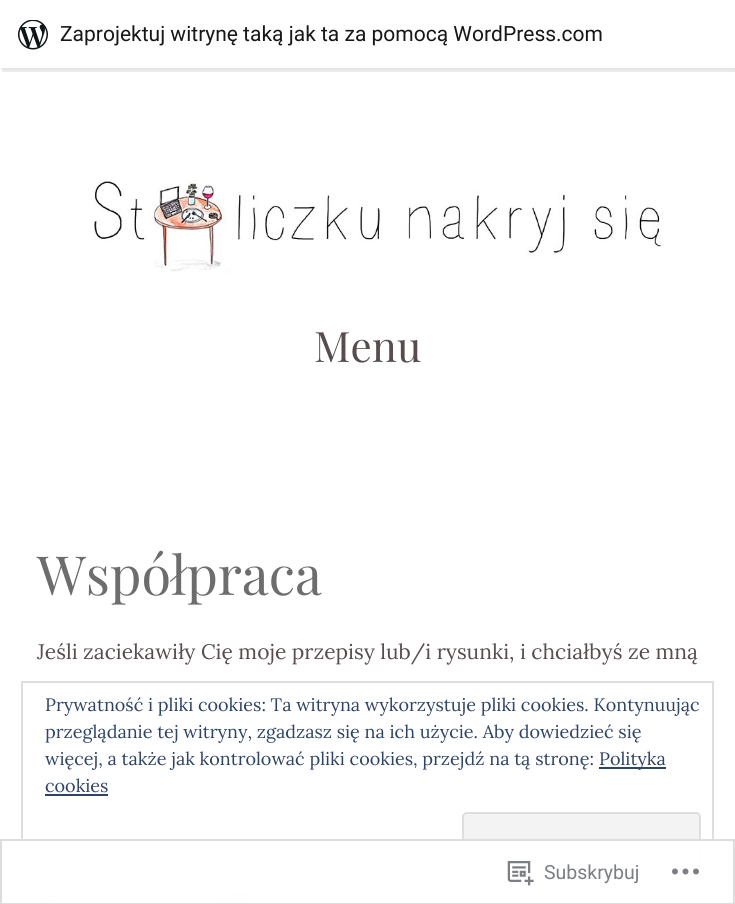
import math
import cairo

surface = cairo.ImageSurface(cairo.Format.RGB24, 735, 904)
ctx = cairo.Context(surface)
options = cairo.FontOptions()
options.set_hint_metrics(cairo.HintMetrics.OFF)
options.set_hint_style(cairo.HintStyle.NONE)
ctx.set_font_options(options)
ctx.set_miter_limit(4)


def ink(r, g, b):
    ctx.set_source_rgb(r / 255, g / 255, b / 255)


def write(x, y, s, family, size, color, bold=False, italic=False):
    ctx.select_font_face(family, cairo.FontSlant.ITALIC if italic else cairo.FontSlant.NORMAL, cairo.FontWeight.BOLD if bold else cairo.FontWeight.NORMAL)
    ctx.set_font_size(size)
    ink(*color)
    ctx.move_to(x, y)
    ctx.show_text(s)


def block(x, y, w, h, *color):
    ink(*color)
    ctx.rectangle(x, y, w, h)
    ctx.fill()


def round_path(x, y, w, h, r):
    ctx.new_sub_path()
    for i, (u, v) in enumerate([(x + w - r, y + h - r), (x + r, y + h - r), (x + r, y + r), (x + w - r, y + r)]):
        ctx.arc(u, v, r, i * math.pi / 2, (i + 1) * math.pi / 2)
    ctx.close_path()


def blur_box(x, y, w, h, r, blur, alpha):
    ctx.push_group_with_content(cairo.Content.ALPHA)
    ctx.set_operator(cairo.Operator.SOURCE)
    for i in range(15, -16, -2):
        e = blur * i / 6
        if min(w, h) + 2 * e > 0:
            ctx.set_source_rgba(0, 0, 0, alpha * math.erfc((i - 1) / 8.5) / 2)
            round_path(x - e, y - e, w + 2 * e, h + 2 * e, max(0, min(r + e + blur * .6, min(w, h) / 2 + e)))
            ctx.fill()
    ctx.mask(ctx.pop_group())


def paste(path, x, y, w, h):
    ctx.save()
    ctx.set_source_surface(cairo.ImageSurface.create_from_png(path), x, y)
    ctx.rectangle(x, y, w, h)
    ctx.fill()
    ctx.restore()


s1 = dict(family="Roboto", size=21, color=(23, 23, 23))
s2 = dict(family="Playfair Display", size=42, color=(87, 77, 77))
s3 = dict(family="Playfair Display", size=54, color=(109, 109, 109))
s4 = dict(family="Lora", size=21, color=(87, 77, 77))
s5 = dict(family="Lora", size=18, color=(46, 68, 103))
s6 = dict(family="Roboto", size=19.5, color=(123, 127, 132))

ink(255, 255, 255)
ctx.paint()
ink(0, 0, 0)
blur_box(0, 2, 735, 67, 0, 1.5, 0.05)
ctx.set_source_rgba(0, 0, 0, 0.08)
ctx.new_path()
ctx.move_to(2, 68)
ctx.line_to(2, 72)
ctx.line_to(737, 72)
ctx.line_to(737, 5)
ctx.line_to(735, 5)
ctx.line_to(735, 68)
ctx.close_path()
ctx.fill()
block(0, 1, 735, 67, 255, 255, 255)
paste("pic1.png", 18, 20, 30, 30)
write(60, 41, "Zaprojektuj witrynę taką jak ta za pomocą WordPress.com", **s1)
paste("pic2.png", 93, 175, 570, 98)
write(314, 362, "Menu", **s2)
write(37, 595, "Współpraca", **s3)
write(37, 659, "Jeśli zaciekawiły Cię moje przepisy lub/i rysunki, i chciałbyś ze mną", **s4)
paste("pic3.png", 37, 892, 451, 12)
ctx.rectangle(22, 682, 691, 201)
ink(222, 222, 222)
ctx.stroke()
write(45, 711, "Prywatność i pliki cookies: Ta witryna wykorzystuje pliki cookies. Kontynuując", **s5)
write(45, 738, "przeglądanie tej witryny, zgadzasz się na ich użycie. Aby dowiedzieć się", **s5)
write(45, 765, "więcej, a także jak kontrolować pliki cookies, przejdź na tą stronę:", **s5)
block(599, 767, 67, 2, 46, 68, 103)
write(599, 765, "Polityka", **s5)
write(45, 792, "cookies", **s5)
block(45, 794, 63, 2, 46, 68, 103)
ink(243, 243, 243)
round_path(462, 812, 239, 58, 5)
ctx.fill()
ink(249, 249, 249)
ctx.new_path()
ctx.move_to(466, 814)
ctx.line_to(696, 814)
ctx.curve_to(698, 814, 699, 816, 699, 818)
ctx.line_to(699, 816)
ctx.curve_to(699, 814, 698, 813, 696, 813)
ctx.line_to(467, 813)
ctx.curve_to(465, 813, 464, 814, 464, 816)
ctx.line_to(464, 818)
ctx.curve_to(464, 816, 465, 814, 466, 814)
ctx.close_path()
ctx.fill()
round_path(463, 813, 237, 56, 4)
ink(222, 222, 222)
ctx.stroke()
ctx.set_source_rgba(1, 1, 1, 0.98)
ctx.rectangle(21, 839, 693, 65)
ctx.fill()
ctx.rectangle(1, 840, 733, 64)
ctx.set_source_rgba(0.863, 0.863, 0.871, 0.98)
ctx.stroke()
paste("pic4.png", 507, 861, 27, 25)
write(544, 879, "Subskrybuj", **s6)
paste("pic5.png", 672, 868, 27, 7)
surface.write_to_png("screenshot.png")
